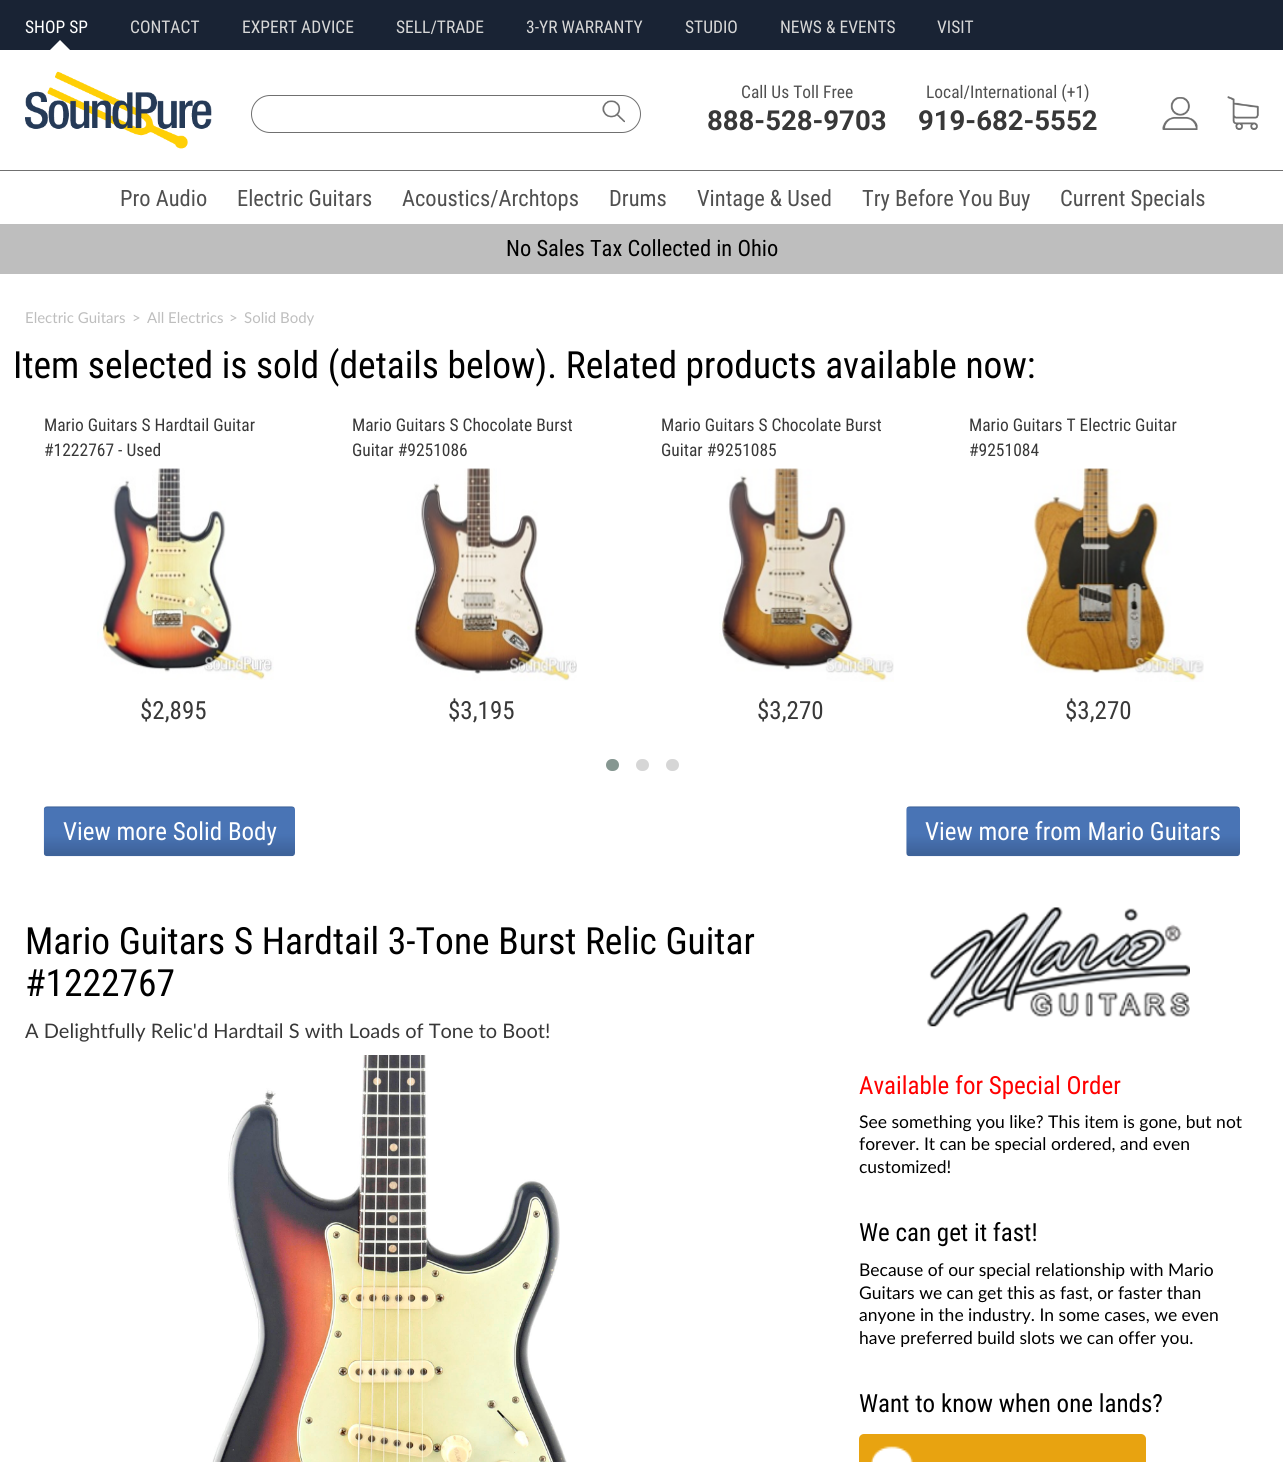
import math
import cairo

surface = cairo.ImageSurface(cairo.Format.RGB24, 1283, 1462)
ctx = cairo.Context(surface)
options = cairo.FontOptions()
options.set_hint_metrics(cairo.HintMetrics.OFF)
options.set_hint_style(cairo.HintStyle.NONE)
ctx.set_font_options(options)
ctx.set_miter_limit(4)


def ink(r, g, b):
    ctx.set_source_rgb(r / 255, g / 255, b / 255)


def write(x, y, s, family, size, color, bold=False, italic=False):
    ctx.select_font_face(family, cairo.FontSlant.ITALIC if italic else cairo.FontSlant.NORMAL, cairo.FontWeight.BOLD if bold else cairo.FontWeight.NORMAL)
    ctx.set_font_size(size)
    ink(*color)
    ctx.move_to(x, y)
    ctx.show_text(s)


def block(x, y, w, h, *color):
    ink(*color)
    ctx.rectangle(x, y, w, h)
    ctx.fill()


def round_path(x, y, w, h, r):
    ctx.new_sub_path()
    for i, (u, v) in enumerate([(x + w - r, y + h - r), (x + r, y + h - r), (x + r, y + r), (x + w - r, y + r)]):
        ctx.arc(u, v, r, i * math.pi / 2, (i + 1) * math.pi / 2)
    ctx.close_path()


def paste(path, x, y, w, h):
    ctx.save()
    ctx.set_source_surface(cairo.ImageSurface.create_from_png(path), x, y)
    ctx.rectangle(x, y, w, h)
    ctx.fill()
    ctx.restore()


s1 = dict(family="Roboto Condensed", size=17.5, color=(255, 255, 255))
s2 = dict(family="Roboto Condensed", size=17.5, color=(215, 215, 215))
s3 = dict(family="Roboto Condensed", size=17.5, color=(80, 80, 80))
s4 = dict(family="Roboto", size=27.5, color=(56, 56, 56), bold=True)
s5 = dict(family="Roboto Condensed", size=22.5, color=(80, 80, 80))
s6 = dict(family="Roboto Condensed", size=22.5, color=(0, 0, 0))
s7 = dict(family="Lato", size=15, color=(190, 190, 190))
s8 = dict(family="Roboto Condensed", size=37.5, color=(0, 0, 0))
s9 = dict(family="Roboto Condensed", size=17.5, color=(56, 56, 56))
s10 = dict(family="Roboto Condensed", size=25, color=(56, 56, 56))
s11 = dict(family="Roboto Condensed", size=25, color=(255, 255, 255))
s12 = dict(family="Lato", size=20, color=(56, 56, 56))
s13 = dict(family="Roboto Condensed", size=25, color=(255, 0, 0))
s14 = dict(family="Lato", size=17.5, color=(0, 0, 0))
s15 = dict(family="Roboto Condensed", size=25, color=(0, 0, 0))

ink(255, 255, 255)
ctx.paint()
block(0, 0, 1283, 50, 25, 35, 52)
write(25, 33, "SHOP SP", **s1)
ctx.new_path()
ctx.move_to(70, 50)
ctx.line_to(50, 50)
ctx.line_to(60, 40)
ctx.close_path()
ctx.fill()
write(130, 33, "CONTACT", **s2)
write(242, 33, "EXPERT ADVICE", **s2)
write(396, 33, "SELL/TRADE", **s2)
write(526, 33, "3-YR WARRANTY", **s2)
write(685, 33, "STUDIO", **s2)
write(780, 33, "NEWS & EVENTS", **s2)
write(937, 33, "VISIT", **s2)
paste("pic1.png", 25, 71, 187, 78)
round_path(251.5, 95.5, 389, 37, 18.5)
ink(112, 112, 112)
ctx.set_line_width(1)
ctx.stroke()
paste("pic2.png", 602, 100, 23, 23)
write(741, 98, "Call Us Toll Free", **s3)
write(707, 130, "888-528-9703", **s4)
write(926, 98, "Local/International (+1)", **s3)
write(918, 130, "919-682-5552", **s4)
paste("pic3.png", 1162, 97, 36, 33)
paste("pic4.png", 1227, 96, 32, 34)
block(0, 170, 1283, 1, 112, 112, 112)
write(120, 206, "Pro Audio", **s5)
write(237, 206, "Electric Guitars", **s5)
write(402, 206, "Acoustics/Archtops", **s5)
write(609, 206, "Drums", **s5)
write(697, 206, "Vintage & Used", **s5)
write(862, 206, "Try Before You Buy", **s5)
write(1060, 206, "Current Specials", **s5)
block(0, 224, 1283, 50, 190, 190, 190)
write(506, 256, "No Sales Tax Collected in Ohio", **s6)
write(25, 323, "Electric Guitars", **s7)
write(132, 323, ">", **s7)
write(147, 323, "All Electrics", **s7)
write(229, 323, ">", **s7)
write(244, 323, "Solid Body", **s7)
write(13, 378, "Item selected is sold (details below). Related products available now:", **s8)
write(44, 431, "Mario Guitars S Hardtail Guitar", **s9)
write(44, 456, "#1222767 - Used", **s9)
paste("pic5.png", 97, 468, 177, 212)
write(140, 719, "$2,895", **s10)
write(352, 431, "Mario Guitars S Chocolate Burst", **s9)
write(352, 456, "Guitar #9251086", **s9)
paste("pic6.png", 407, 468, 170, 213)
write(448, 719, "$3,195", **s10)
write(661, 431, "Mario Guitars S Chocolate Burst", **s9)
write(661, 456, "Guitar #9251085", **s9)
paste("pic7.png", 719, 468, 175, 214)
write(757, 719, "$3,270", **s10)
write(969, 431, "Mario Guitars T Electric Guitar", **s9)
write(969, 456, "#9251084", **s9)
paste("pic8.png", 1021, 468, 183, 214)
write(1065, 719, "$3,270", **s10)
ink(134, 151, 145)
round_path(606, 759, 13, 12, 6)
ctx.fill()
ink(214, 214, 214)
round_path(636, 759, 13, 12, 6)
ctx.fill()
round_path(666, 759, 13, 12, 6)
ctx.fill()
paste("pic9.png", 43, 806, 252, 51)
write(63, 840, "View more Solid Body", **s11)
paste("pic10.png", 906, 806, 334, 51)
write(925, 840, "View more from Mario Guitars", **s11)
write(25, 954, "Mario Guitars S Hardtail 3-Tone Burst Relic Guitar", **s8)
write(25, 996, "#1222767", **s8)
write(25, 1038, "A Delightfully Relic'd Hardtail S with Loads of Tone to Boot!", **s12)
paste("pic11.png", 212, 1055, 355, 407)
paste("pic12.png", 927, 907, 263, 120)
write(859, 1094, "Available for Special Order", **s13)
write(859, 1128, "See something you like? This item is gone, but not", **s14)
write(859, 1150, "forever. It can be special ordered, and even", **s14)
write(859, 1173, "customized!", **s14)
write(859, 1241, "We can get it fast!", **s15)
write(859, 1276, "Because of our special relationship with Mario", **s14)
write(859, 1299, "Guitars we can get this as fast, or faster than", **s14)
write(859, 1321, "anyone in the industry. In some cases, we even", **s14)
write(859, 1344, "have preferred build slots we can offer you.", **s14)
write(859, 1412, "Want to know when one lands?", **s15)
ink(232, 163, 16)
round_path(859, 1434, 287, 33, 5)
ctx.fill()
paste("pic13.png", 871, 1446, 42, 16)
surface.write_to_png("screenshot.png")
